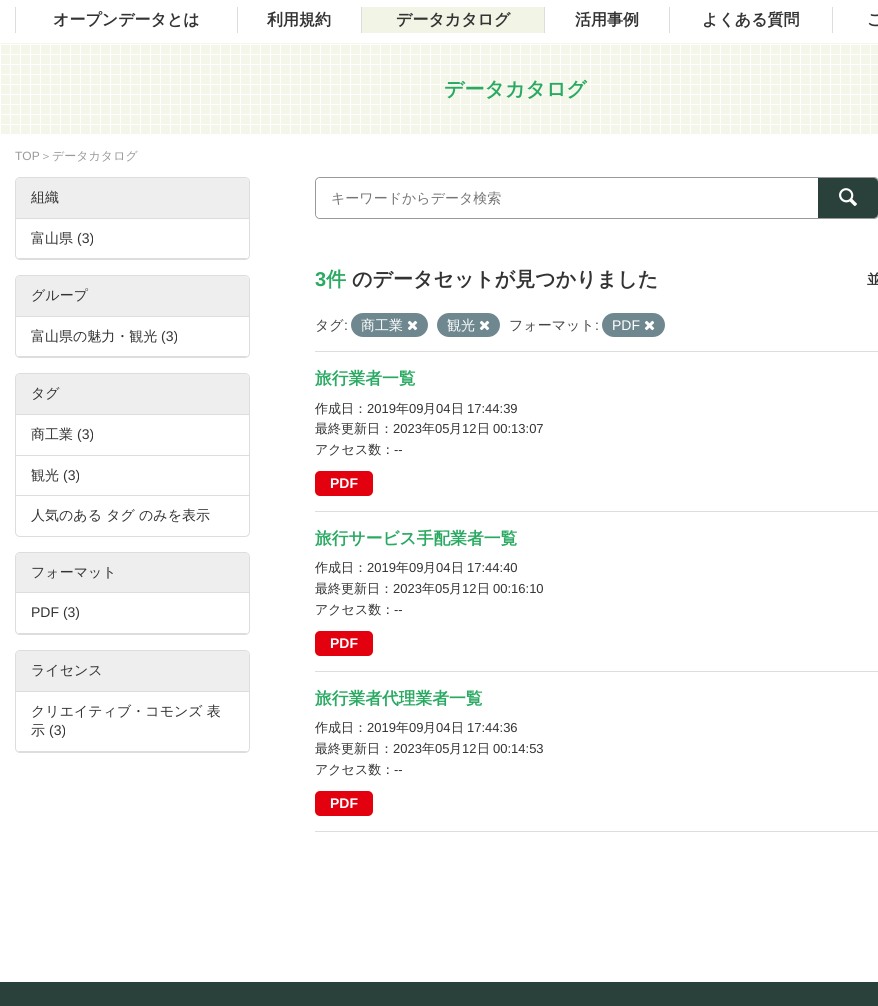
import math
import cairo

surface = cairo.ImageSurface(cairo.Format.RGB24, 878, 1006)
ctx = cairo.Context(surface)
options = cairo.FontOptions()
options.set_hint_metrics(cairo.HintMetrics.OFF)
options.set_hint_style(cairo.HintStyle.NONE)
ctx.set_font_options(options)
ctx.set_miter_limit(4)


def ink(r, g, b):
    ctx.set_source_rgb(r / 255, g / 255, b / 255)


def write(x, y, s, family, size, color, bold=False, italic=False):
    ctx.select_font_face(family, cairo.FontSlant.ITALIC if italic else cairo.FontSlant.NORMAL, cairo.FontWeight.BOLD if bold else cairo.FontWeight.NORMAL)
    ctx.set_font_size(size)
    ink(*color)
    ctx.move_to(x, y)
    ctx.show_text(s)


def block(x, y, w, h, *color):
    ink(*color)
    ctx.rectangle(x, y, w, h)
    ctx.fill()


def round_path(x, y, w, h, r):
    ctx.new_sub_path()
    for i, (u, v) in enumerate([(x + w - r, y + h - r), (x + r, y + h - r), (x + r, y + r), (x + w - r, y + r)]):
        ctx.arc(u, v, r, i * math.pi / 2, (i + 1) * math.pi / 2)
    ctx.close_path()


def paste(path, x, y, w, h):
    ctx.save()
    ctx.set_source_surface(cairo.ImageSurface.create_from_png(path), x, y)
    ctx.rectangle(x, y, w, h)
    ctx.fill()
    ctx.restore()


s1 = dict(family="WenQuanYi Zen Hei", size=16, color=(51, 51, 51), bold=True)
s2 = dict(family="WenQuanYi Zen Hei", size=20, color=(41, 169, 97), bold=True)
s3 = dict(family="Liberation Sans", size=12, color=(153, 153, 153))
s4 = dict(family="WenQuanYi Zen Hei Medium", size=12, color=(153, 153, 153))
s5 = dict(family="WenQuanYi Zen Hei Medium", size=14, color=(51, 51, 51))
s6 = dict(family="Liberation Sans", size=14, color=(51, 51, 51))
s7 = dict(family="WenQuanYi Zen Hei Medium", size=14, color=(117, 117, 117))
s8 = dict(family="Liberation Sans", size=20, color=(41, 169, 97), bold=True)
s9 = dict(family="WenQuanYi Zen Hei", size=20, color=(51, 51, 51), bold=True)
s10 = dict(family="WenQuanYi Zen Hei", size=14, color=(51, 51, 51), bold=True)
s11 = dict(family="WenQuanYi Zen Hei Medium", size=14, color=(68, 68, 68))
s12 = dict(family="Liberation Sans", size=14, color=(68, 68, 68))
s13 = dict(family="WenQuanYi Zen Hei Medium", size=14, color=(255, 255, 255))
s14 = dict(family="Liberation Sans", size=14, color=(255, 255, 255))
s15 = dict(family="WenQuanYi Zen Hei", size=16.75, color=(41, 169, 97), bold=True)
s16 = dict(family="WenQuanYi Zen Hei Medium", size=13, color=(51, 51, 51))
s17 = dict(family="Liberation Sans", size=13, color=(51, 51, 51))
s18 = dict(family="Liberation Sans", size=14, color=(255, 255, 255), bold=True)

ink(255, 255, 255)
ctx.paint()
block(237, 7, 1, 26, 221, 221, 221)
block(15, 7, 1, 26, 221, 221, 221)
write(53, 25, "オープンデータとは", **s1)
block(361, 7, 1, 26, 221, 221, 221)
write(267, 25, "利用規約", **s1)
block(362, 7, 182, 26, 242, 244, 230)
block(544, 7, 1, 26, 221, 221, 221)
write(396, 25, "データカタログ", **s1)
block(669, 7, 1, 26, 221, 221, 221)
write(575, 25, "活用事例", **s1)
block(832, 7, 1, 26, 221, 221, 221)
write(702, 25, "よくある質問", **s1)
write(867, 25, "ご", **s1)
paste("pic1.png", 1, 43, 877, 91)
write(444, 96, "データカタログ", **s2)
write(15, 160, "TOP", **s3)
write(40, 160, "＞データカタログ", **s4)
round_path(15.5, 177.5, 234, 82, 4.5)
ink(221, 221, 221)
ctx.set_line_width(1)
ctx.stroke()
ink(238, 238, 238)
ctx.new_path()
ctx.move_to(20, 178)
ctx.line_to(245, 178)
ctx.curve_to(247, 178, 249, 180, 249, 182)
ctx.line_to(249, 219)
ctx.line_to(16, 219)
ctx.line_to(16, 182)
ctx.curve_to(16, 180, 18, 178, 20, 178)
ctx.close_path()
ctx.fill()
block(16, 218, 233, 1, 221, 221, 221)
write(31, 202, "組織", **s5)
write(31, 243, "富山県", **s5)
write(77, 243, "(3)", **s6)
ctx.save()
round_path(16, 178, 233, 81, 4)
ctx.clip()
block(16, 258, 233, 1, 221, 221, 221)
ctx.restore()
round_path(15.5, 275.5, 234, 82, 4.5)
ink(221, 221, 221)
ctx.stroke()
ink(238, 238, 238)
ctx.new_path()
ctx.move_to(20, 276)
ctx.line_to(245, 276)
ctx.curve_to(247, 276, 249, 278, 249, 280)
ctx.line_to(249, 317)
ctx.line_to(16, 317)
ctx.line_to(16, 280)
ctx.curve_to(16, 278, 18, 276, 20, 276)
ctx.close_path()
ctx.fill()
block(16, 316, 233, 1, 221, 221, 221)
write(31, 300, "グループ", **s5)
write(31, 341, "富山県の魅力・観光", **s5)
write(161, 341, "(3)", **s6)
ctx.save()
round_path(16, 276, 233, 81, 4)
ctx.clip()
block(16, 356, 233, 1, 221, 221, 221)
ctx.restore()
round_path(15.5, 373.5, 234, 163, 4.5)
ink(221, 221, 221)
ctx.stroke()
ink(238, 238, 238)
ctx.new_path()
ctx.move_to(20, 374)
ctx.line_to(245, 374)
ctx.curve_to(247, 374, 249, 376, 249, 378)
ctx.line_to(249, 415)
ctx.line_to(16, 415)
ctx.line_to(16, 378)
ctx.curve_to(16, 376, 18, 374, 20, 374)
ctx.close_path()
ctx.fill()
block(16, 414, 233, 1, 221, 221, 221)
write(31, 398, "タグ", **s5)
write(31, 439, "商工業", **s5)
write(77, 439, "(3)", **s6)
block(16, 455, 233, 1, 221, 221, 221)
write(31, 480, "観光", **s5)
write(63, 480, "(3)", **s6)
block(16, 495, 233, 1, 221, 221, 221)
write(31, 520, "人気のある タグ のみを表示", **s5)
round_path(15.5, 552.5, 234, 82, 4.5)
ink(221, 221, 221)
ctx.stroke()
ink(238, 238, 238)
ctx.new_path()
ctx.move_to(20, 553)
ctx.line_to(245, 553)
ctx.curve_to(247, 553, 249, 555, 249, 557)
ctx.line_to(249, 593)
ctx.line_to(16, 593)
ctx.line_to(16, 557)
ctx.curve_to(16, 555, 18, 553, 20, 553)
ctx.close_path()
ctx.fill()
block(16, 592, 233, 1, 221, 221, 221)
write(31, 577, "フォーマット", **s5)
write(31, 617, "PDF (3)", **s6)
ctx.save()
round_path(16, 553, 233, 81, 4)
ctx.clip()
block(16, 633, 233, 1, 221, 221, 221)
ctx.restore()
round_path(15.5, 650.5, 234, 102, 4.5)
ink(221, 221, 221)
ctx.stroke()
ink(238, 238, 238)
ctx.new_path()
ctx.move_to(20, 651)
ctx.line_to(245, 651)
ctx.curve_to(247, 651, 249, 653, 249, 655)
ctx.line_to(249, 692)
ctx.line_to(16, 692)
ctx.line_to(16, 655)
ctx.curve_to(16, 653, 18, 651, 20, 651)
ctx.close_path()
ctx.fill()
block(16, 691, 233, 1, 221, 221, 221)
write(31, 675, "ライセンス", **s5)
write(31, 716, "クリエイティブ・コモンズ 表", **s5)
write(31, 735, "示", **s5)
write(49, 735, "(3)", **s6)
ctx.save()
round_path(16, 651, 233, 101, 4)
ctx.clip()
block(16, 751, 233, 1, 221, 221, 221)
ctx.restore()
round_path(315.5, 177.5, 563, 41, 4.5)
ink(153, 153, 153)
ctx.stroke()
ink(255, 255, 255)
ctx.new_path()
ctx.move_to(320, 178)
ctx.line_to(818, 178)
ctx.line_to(818, 218)
ctx.line_to(320, 218)
ctx.curve_to(318, 218, 316, 216, 316, 214)
ctx.line_to(316, 182)
ctx.curve_to(316, 180, 318, 178, 320, 178)
ctx.close_path()
ctx.fill()
write(331, 203, "キーワードからデータ検索", **s7)
ink(41, 65, 58)
ctx.new_path()
ctx.move_to(818, 178)
ctx.line_to(874, 178)
ctx.curve_to(876, 178, 878, 180, 878, 182)
ctx.line_to(878, 214)
ctx.curve_to(878, 216, 876, 218, 874, 218)
ctx.line_to(818, 218)
ctx.close_path()
ctx.fill()
paste("pic2.png", 839, 188, 18, 18)
write(315, 286, "3", **s8)
write(326, 286, "件", **s2)
write(352, 286, "のデータセットが見つかりました", **s9)
write(867, 284, "並", **s10)
write(315, 330, "タグ", **s11)
write(344, 330, ":", **s12)
ink(111, 136, 144)
round_path(351, 313, 77, 24, 12)
ctx.fill()
write(361, 330, "商工業", **s13)
paste("pic3.png", 407, 320, 11, 11)
ink(111, 136, 144)
round_path(437, 313, 63, 24, 12)
ctx.fill()
write(447, 330, "観光", **s13)
paste("pic3.png", 479, 320, 11, 11)
write(509, 330, "フォーマット", **s11)
write(595, 330, ":", **s12)
ink(111, 136, 144)
round_path(602, 313, 63, 24, 12)
ctx.fill()
write(612, 330, "PDF", **s14)
paste("pic3.png", 644, 320, 11, 11)
block(315, 351, 563, 1, 221, 221, 221)
block(315, 511, 563, 1, 221, 221, 221)
write(315, 384, "旅行業者一覧", **s15)
write(315, 413, "作成日：", **s16)
write(367, 413, "2019", **s17)
write(396, 413, "年", **s16)
write(409, 413, "09", **s17)
write(423, 413, "月", **s16)
write(436, 413, "04", **s17)
write(451, 413, "日", **s16)
write(467, 413, "17:44:39", **s17)
write(315, 433, "最終更新日：", **s16)
write(393, 433, "2023", **s17)
write(422, 433, "年", **s16)
write(435, 433, "05", **s17)
write(449, 433, "月", **s16)
write(462, 433, "12", **s17)
write(477, 433, "日", **s16)
write(493, 433, "00:13:07", **s17)
write(315, 454, "アクセス数：", **s16)
write(394, 454, "--", **s17)
ink(227, 0, 15)
round_path(315, 471, 58, 25, 5)
ctx.fill()
write(330, 488, "PDF", **s18)
block(315, 671, 563, 1, 221, 221, 221)
write(315, 544, "旅行サービス手配業者一覧", **s15)
write(315, 572, "作成日：", **s16)
write(367, 572, "2019", **s17)
write(396, 572, "年", **s16)
write(409, 572, "09", **s17)
write(423, 572, "月", **s16)
write(436, 572, "04", **s17)
write(451, 572, "日", **s16)
write(467, 572, "17:44:40", **s17)
write(315, 593, "最終更新日：", **s16)
write(393, 593, "2023", **s17)
write(422, 593, "年", **s16)
write(435, 593, "05", **s17)
write(449, 593, "月", **s16)
write(462, 593, "12", **s17)
write(477, 593, "日", **s16)
write(493, 593, "00:16:10", **s17)
write(315, 614, "アクセス数：", **s16)
write(394, 614, "--", **s17)
ink(227, 0, 15)
round_path(315, 631, 58, 25, 5)
ctx.fill()
write(330, 648, "PDF", **s18)
block(315, 831, 563, 1, 221, 221, 221)
write(315, 704, "旅行業者代理業者一覧", **s15)
write(315, 732, "作成日：", **s16)
write(367, 732, "2019", **s17)
write(396, 732, "年", **s16)
write(409, 732, "09", **s17)
write(423, 732, "月", **s16)
write(436, 732, "04", **s17)
write(451, 732, "日", **s16)
write(467, 732, "17:44:36", **s17)
write(315, 753, "最終更新日：", **s16)
write(393, 753, "2023", **s17)
write(422, 753, "年", **s16)
write(435, 753, "05", **s17)
write(449, 753, "月", **s16)
write(462, 753, "12", **s17)
write(477, 753, "日", **s16)
write(493, 753, "00:14:53", **s17)
write(315, 774, "アクセス数：", **s16)
write(394, 774, "--", **s17)
ink(227, 0, 15)
round_path(315, 791, 58, 25, 5)
ctx.fill()
write(330, 808, "PDF", **s18)
block(0, 982, 878, 24, 41, 65, 58)
surface.write_to_png("screenshot.png")
